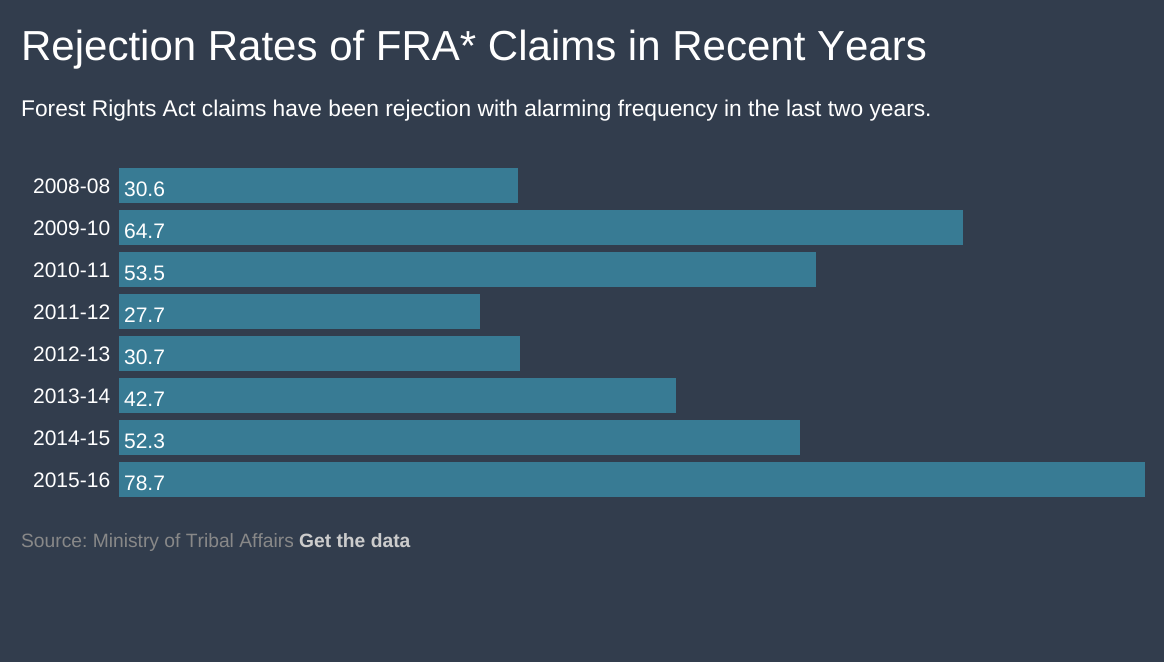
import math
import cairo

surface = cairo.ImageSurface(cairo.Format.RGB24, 1164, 662)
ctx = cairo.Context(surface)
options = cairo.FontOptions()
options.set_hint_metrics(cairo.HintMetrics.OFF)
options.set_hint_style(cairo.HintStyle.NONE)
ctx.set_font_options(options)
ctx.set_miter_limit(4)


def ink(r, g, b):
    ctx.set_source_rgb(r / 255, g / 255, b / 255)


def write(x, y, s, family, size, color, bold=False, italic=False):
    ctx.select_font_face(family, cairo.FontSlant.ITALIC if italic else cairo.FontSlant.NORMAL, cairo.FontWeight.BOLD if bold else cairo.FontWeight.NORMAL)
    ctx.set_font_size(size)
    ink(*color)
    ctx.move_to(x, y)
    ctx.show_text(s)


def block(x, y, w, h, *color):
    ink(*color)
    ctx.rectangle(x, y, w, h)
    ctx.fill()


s1 = dict(family="Liberation Sans", size=42, color=(255, 255, 255))
s2 = dict(family="Liberation Sans", size=22.75, color=(255, 255, 255))
s3 = dict(family="Liberation Sans", size=21, color=(255, 255, 255))
s4 = dict(family="Liberation Sans", size=19.25, color=(136, 136, 136))
s5 = dict(family="Liberation Sans", size=19.25, color=(204, 204, 204), bold=True)

ink(50, 61, 77)
ctx.paint()
write(21, 60, "Rejection Rates of FRA* Claims in Recent Years", **s1)
write(21, 116, "Forest Rights Act claims have been rejection with alarming frequency in the last two years.", **s2)
write(33, 193, "2008-08", **s3)
block(119, 168, 399, 35, 56, 123, 148)
write(124, 196, "30.6", **s3)
write(33, 235, "2009-10", **s3)
block(119, 210, 844, 35, 56, 123, 148)
write(124, 238, "64.7", **s3)
write(33, 277, "2010-11", **s3)
block(119, 252, 697, 35, 56, 123, 148)
write(124, 280, "53.5", **s3)
write(33, 319, "2011-12", **s3)
block(119, 294, 361, 35, 56, 123, 148)
write(124, 322, "27.7", **s3)
write(33, 361, "2012-13", **s3)
block(119, 336, 401, 35, 56, 123, 148)
write(124, 364, "30.7", **s3)
write(33, 403, "2013-14", **s3)
block(119, 378, 557, 35, 56, 123, 148)
write(124, 406, "42.7", **s3)
write(33, 445, "2014-15", **s3)
block(119, 420, 681, 35, 56, 123, 148)
write(124, 448, "52.3", **s3)
write(33, 487, "2015-16", **s3)
block(119, 462, 1026, 35, 56, 123, 148)
write(124, 490, "78.7", **s3)
write(21, 547, "Source: Ministry of Tribal Affairs", **s4)
write(299, 547, "Get the data", **s5)
surface.write_to_png("screenshot.png")
